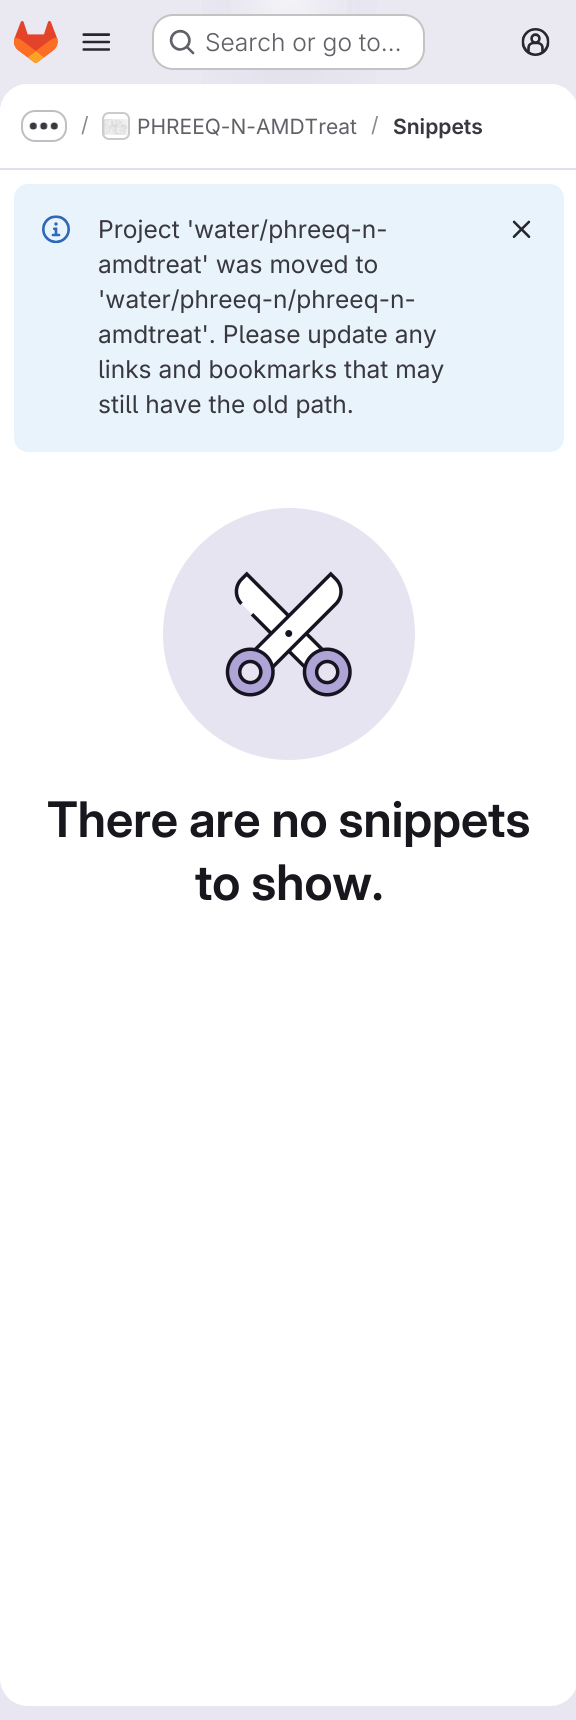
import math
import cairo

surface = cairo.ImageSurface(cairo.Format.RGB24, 576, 1720)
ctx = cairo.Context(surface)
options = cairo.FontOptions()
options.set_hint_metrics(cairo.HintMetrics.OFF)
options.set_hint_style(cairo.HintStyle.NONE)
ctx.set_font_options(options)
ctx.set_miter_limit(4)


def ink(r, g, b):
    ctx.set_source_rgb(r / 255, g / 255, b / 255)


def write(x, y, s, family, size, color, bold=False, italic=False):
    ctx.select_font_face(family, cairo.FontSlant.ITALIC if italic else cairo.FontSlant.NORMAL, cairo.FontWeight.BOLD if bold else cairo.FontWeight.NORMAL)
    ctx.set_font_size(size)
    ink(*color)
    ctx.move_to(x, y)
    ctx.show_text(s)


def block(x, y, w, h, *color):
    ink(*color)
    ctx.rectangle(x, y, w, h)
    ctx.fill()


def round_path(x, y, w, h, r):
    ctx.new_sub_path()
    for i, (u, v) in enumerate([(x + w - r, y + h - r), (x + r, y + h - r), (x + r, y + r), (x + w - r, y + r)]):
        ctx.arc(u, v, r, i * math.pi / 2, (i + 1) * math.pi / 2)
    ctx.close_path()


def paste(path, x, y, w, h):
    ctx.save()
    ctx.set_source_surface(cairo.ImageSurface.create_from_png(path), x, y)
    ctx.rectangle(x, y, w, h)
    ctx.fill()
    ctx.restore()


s1 = dict(family="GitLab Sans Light", size=24.5, color=(98, 97, 104))
s2 = dict(family="GitLab Sans", size=21, color=(137, 136, 141))
s3 = dict(family="GitLab Sans", size=21, color=(98, 97, 104))
s4 = dict(family="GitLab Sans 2 SemiBold", size=21, color=(58, 56, 63))
s5 = dict(family="GitLab Sans", size=24.5, color=(58, 56, 63))
s6 = dict(family="GitLab Sans SemiBold", size=49, color=(24, 23, 29))

ink(255, 255, 255)
ctx.paint()
gradient = cairo.LinearGradient(445, 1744, 133, -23)
gradient.add_color_stop_rgba(0, 0.91, 0.902, 0.941, 1)
gradient.add_color_stop_rgba(0.7, 0.918, 0.914, 0.949, 1)
ctx.set_source(gradient)
ctx.rectangle(0, 0, 576, 1720)
ctx.fill()
gradient = cairo.RadialGradient(0, 0, 0, 0, 0, 1)
gradient.set_matrix(cairo.Matrix(1 / 289, 0, 0, 1 / 1720, -1 * 289 / 289, -1 * 0 / 1720))
gradient.add_color_stop_rgba(0, 0.894, 0.886, 0.929, 1)
gradient.add_color_stop_rgba(0.42, 0.894, 0.886, 0.929, 0)
ctx.set_source(gradient)
ctx.rectangle(202, 0, 175, 84)
ctx.fill()
gradient = cairo.RadialGradient(0, 0, 0, 0, 0, 1)
gradient.set_matrix(cairo.Matrix(1 / 289, 0, 0, 1 / 1720, -1 * 289 / 289, -1 * 0 / 1720))
gradient.add_color_stop_rgba(0, 0.894, 0.886, 0.925, 1)
gradient.add_color_stop_rgba(0.3, 0.894, 0.886, 0.925, 0)
ctx.set_source(gradient)
ctx.rectangle(254, 31, 70, 49)
ctx.fill()
gradient = cairo.RadialGradient(289, 0, 0, 289, 0, 1744)
gradient.add_color_stop_rgba(0, 1, 1, 1, 0.6)
gradient.add_color_stop_rgba(0.04, 1, 1, 1, 0)
ctx.set_source(gradient)
ctx.rectangle(231, 0, 116, 59)
ctx.fill()
paste("pic1.png", 14, 21, 44, 42)
paste("pic2.png", 82, 33, 29, 18)
ink(255, 255, 255)
round_path(152, 14, 273, 56, 21)
ctx.fill()
round_path(153, 15, 271, 54, 20)
ctx.set_source_rgba(0.02, 0.02, 0.024, 0.24)
ctx.stroke()
paste("pic3.png", 169, 29, 26, 26)
write(205, 51, "Search or go to…", **s1)
paste("pic4.png", 521, 28, 29, 28)
ink(255, 255, 255)
round_path(0, 84, 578, 1622, 28)
ctx.fill()
ctx.new_path()
ctx.move_to(28, 84)
ctx.line_to(550, 84)
ctx.curve_to(565.5, 84, 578, 96.5, 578, 112)
ctx.line_to(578, 170)
ctx.line_to(0, 170)
ctx.line_to(0, 112)
ctx.curve_to(0, 96.5, 12.5, 84, 28, 84)
ctx.close_path()
ctx.fill()
block(0, 168, 576, 2, 225, 223, 236)
round_path(22, 111, 44, 30, 13)
ink(191, 191, 195)
ctx.stroke()
paste("pic5.png", 29, 122, 29, 8)
write(81, 132, "/", **s2)
round_path(103, 113, 26, 26, 6)
ink(220, 220, 222)
ctx.stroke()
paste("pic6.png", 103, 119, 25, 16)
round_path(103, 113, 26, 26, 6)
ctx.set_source_rgba(0.02, 0.02, 0.024, 0.08)
ctx.stroke()
write(137, 134, "PHREEQ-N-AMDTreat", **s3)
write(371, 132, "/", **s2)
write(393, 134, "Snippets", **s4)
ink(233, 243, 252)
round_path(14, 184, 550, 268, 14)
ctx.fill()
paste("pic7.png", 42, 215, 28, 29)
write(98, 238, "Project 'water/phreeq-n-", **s5)
write(98, 273, "amdtreat' was moved to", **s5)
write(98, 308, "'water/phreeq-n/phreeq-n-", **s5)
write(98, 343, "amdtreat'. Please update any", **s5)
write(98, 378, "links and bookmarks that may", **s5)
write(98, 413, "still have the old path.", **s5)
paste("pic8.png", 512, 220, 19, 18)
paste("pic9.png", 163, 508, 252, 252)
write(47, 837, "There are no snippets", **s6)
write(195, 900, "to show.", **s6)
surface.write_to_png("screenshot.png")
